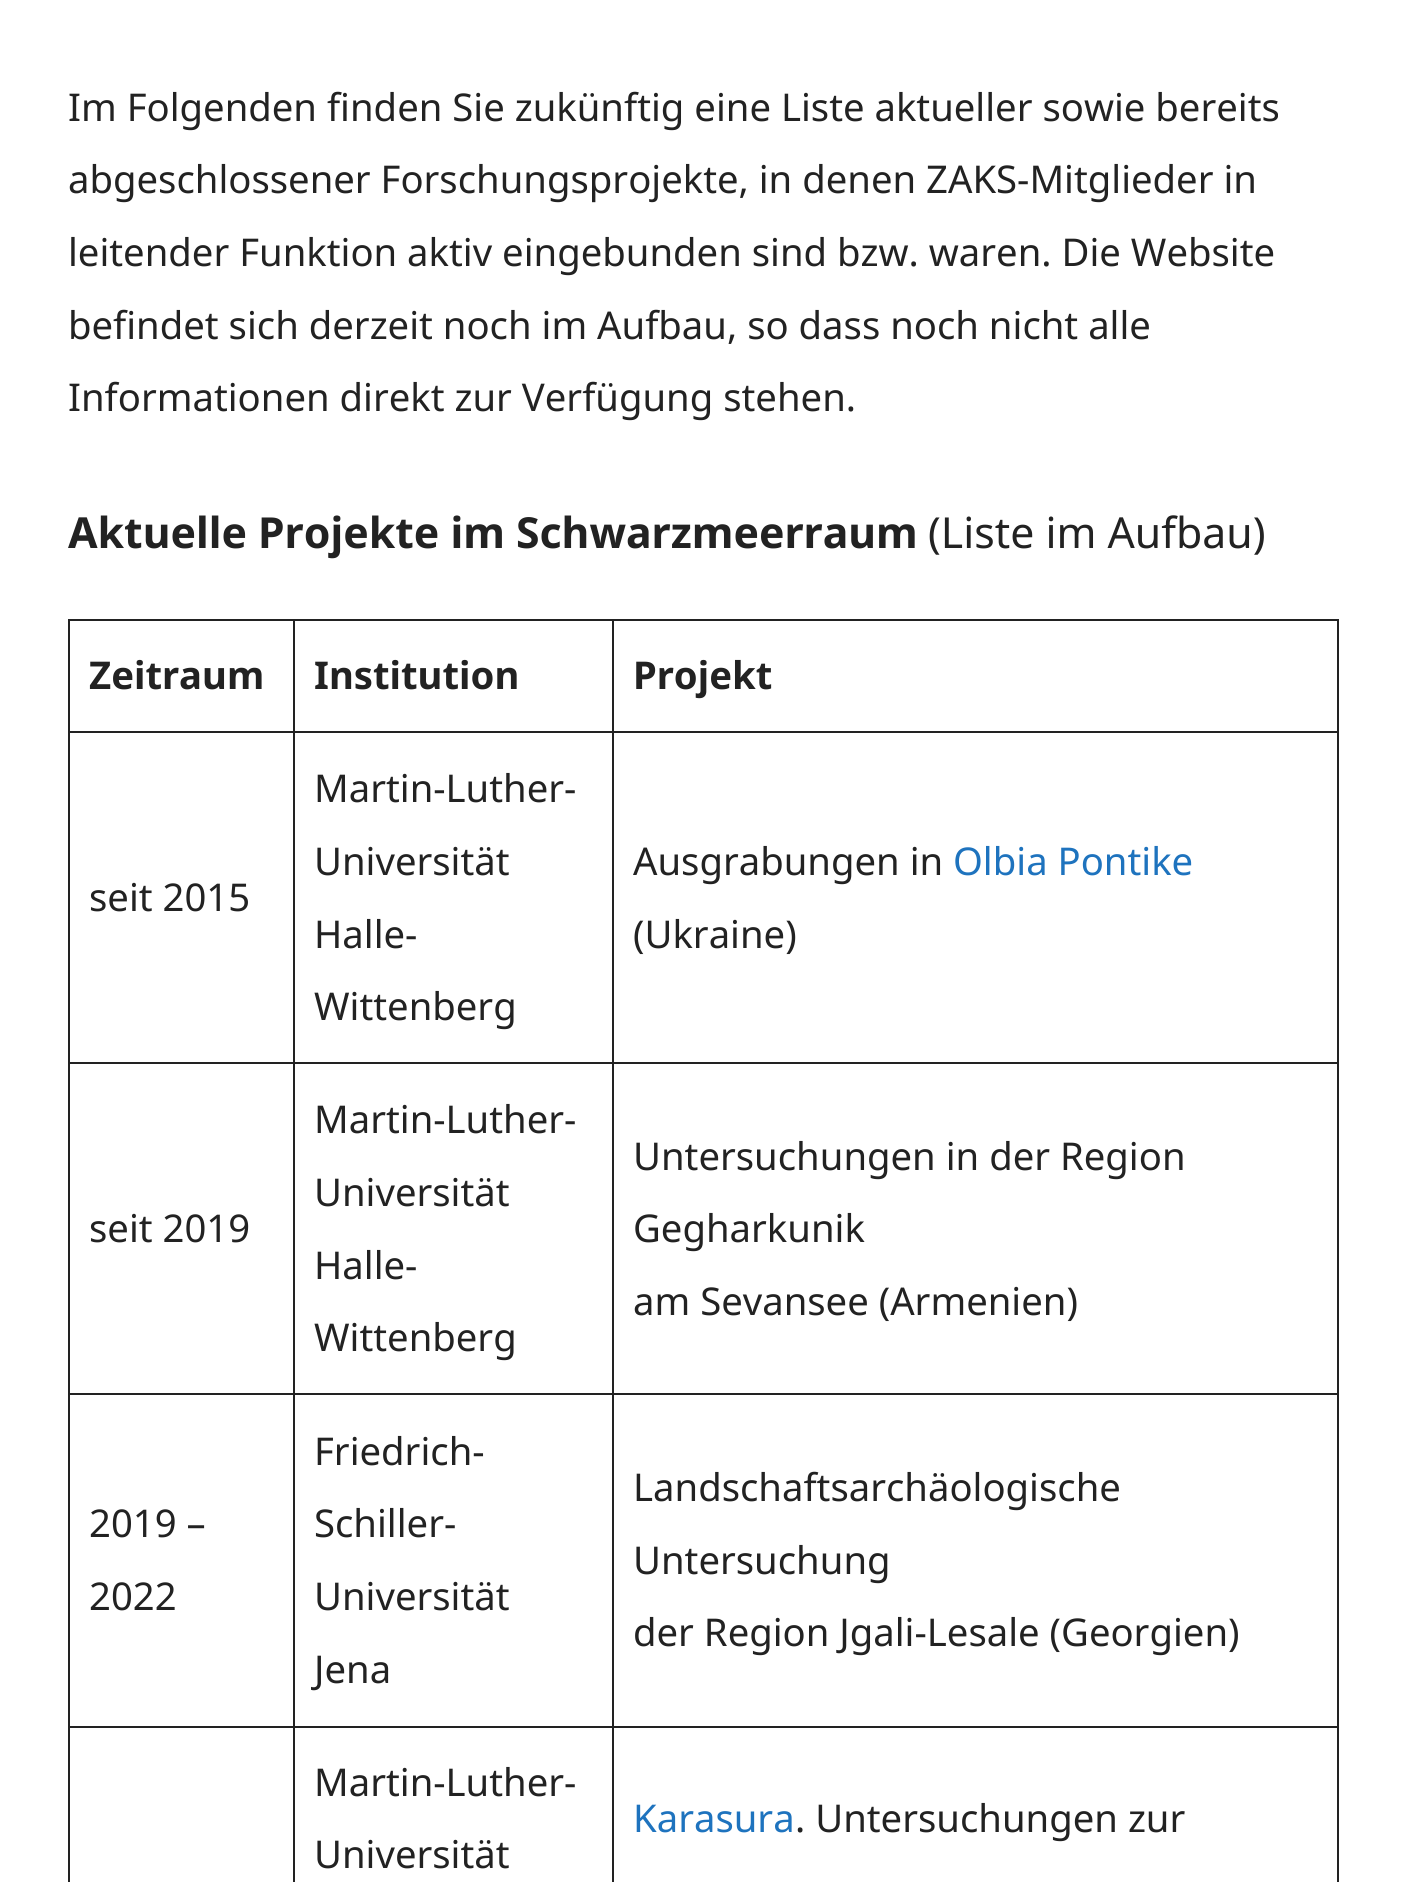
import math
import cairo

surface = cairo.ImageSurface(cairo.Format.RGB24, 1405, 1882)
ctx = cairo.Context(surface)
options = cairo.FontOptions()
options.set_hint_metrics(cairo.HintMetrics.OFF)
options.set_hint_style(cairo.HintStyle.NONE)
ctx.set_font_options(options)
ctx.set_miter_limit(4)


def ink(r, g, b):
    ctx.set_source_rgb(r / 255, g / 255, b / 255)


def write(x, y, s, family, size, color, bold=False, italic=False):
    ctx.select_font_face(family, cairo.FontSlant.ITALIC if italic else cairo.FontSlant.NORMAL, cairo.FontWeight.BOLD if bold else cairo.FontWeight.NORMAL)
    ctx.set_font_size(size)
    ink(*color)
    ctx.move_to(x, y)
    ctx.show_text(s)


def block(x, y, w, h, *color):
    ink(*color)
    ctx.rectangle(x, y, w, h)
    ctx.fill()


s1 = dict(family="Noto Sans", size=38.25, color=(34, 34, 34))
s2 = dict(family="Noto Sans", size=42.75, color=(34, 34, 34), bold=True)
s3 = dict(family="Noto Sans", size=42.75, color=(34, 34, 34))
s4 = dict(family="Noto Sans", size=38.25, color=(34, 34, 34), bold=True)
s5 = dict(family="Noto Sans", size=38.25, color=(30, 115, 190))

ink(255, 255, 255)
ctx.paint()
write(68, 121, "Im Folgenden finden Sie zukünftig eine Liste aktueller sowie bereits", **s1)
write(68, 193, "abgeschlossener Forschungsprojekte, in denen ZAKS-Mitglieder in", **s1)
write(68, 266, "leitender Funktion aktiv eingebunden sind bzw. waren. Die Website", **s1)
write(68, 339, "befindet sich derzeit noch im Aufbau, so dass noch nicht alle", **s1)
write(68, 411, "Informationen direkt zur Verfügung stehen.", **s1)
write(68, 548, "Aktuelle Projekte im Schwarzmeerraum", **s2)
write(928, 548, "(Liste im Aufbau)", **s3)
block(612, 619, 727, 2, 34, 34, 34)
block(612, 731, 727, 2, 34, 34, 34)
block(612, 1062, 727, 2, 34, 34, 34)
block(612, 1393, 727, 2, 34, 34, 34)
block(612, 1726, 727, 2, 34, 34, 34)
block(612, 1726, 2, 156, 34, 34, 34)
block(293, 1726, 321, 2, 34, 34, 34)
block(612, 1393, 2, 335, 34, 34, 34)
block(293, 1393, 321, 2, 34, 34, 34)
block(612, 1062, 2, 333, 34, 34, 34)
block(293, 1062, 321, 2, 34, 34, 34)
block(612, 731, 2, 333, 34, 34, 34)
block(293, 731, 321, 2, 34, 34, 34)
block(612, 619, 2, 115, 34, 34, 34)
block(293, 619, 321, 2, 34, 34, 34)
block(293, 1726, 2, 156, 34, 34, 34)
block(68, 1726, 227, 2, 34, 34, 34)
block(293, 1393, 2, 335, 34, 34, 34)
block(68, 1393, 227, 2, 34, 34, 34)
block(293, 1062, 2, 333, 34, 34, 34)
block(68, 1062, 227, 2, 34, 34, 34)
block(293, 731, 2, 333, 34, 34, 34)
block(68, 731, 227, 2, 34, 34, 34)
block(293, 619, 2, 115, 34, 34, 34)
block(68, 619, 227, 2, 34, 34, 34)
block(68, 1726, 2, 156, 34, 34, 34)
block(68, 1393, 2, 335, 34, 34, 34)
block(68, 1062, 2, 333, 34, 34, 34)
block(68, 731, 2, 333, 34, 34, 34)
block(68, 619, 2, 115, 34, 34, 34)
write(89, 689, "Zeitraum", **s4)
write(314, 689, "Institution", **s4)
block(1337, 1726, 2, 156, 34, 34, 34)
block(1337, 1393, 2, 335, 34, 34, 34)
block(1337, 1062, 2, 333, 34, 34, 34)
block(1337, 731, 2, 333, 34, 34, 34)
block(1337, 619, 2, 115, 34, 34, 34)
write(633, 689, "Projekt", **s4)
write(89, 911, "seit 2015", **s1)
write(314, 802, "Martin-Luther-", **s1)
write(314, 875, "Universität", **s1)
write(314, 948, "Halle-", **s1)
write(314, 1020, "Wittenberg", **s1)
write(633, 875, "Ausgrabungen in", **s1)
write(953, 875, "Olbia Pontike", **s5)
write(633, 948, "(Ukraine)", **s1)
write(89, 1242, "seit 2019", **s1)
write(314, 1133, "Martin-Luther-", **s1)
write(314, 1206, "Universität", **s1)
write(314, 1279, "Halle-", **s1)
write(314, 1351, "Wittenberg", **s1)
write(633, 1170, "Untersuchungen in der Region", **s1)
write(633, 1242, "Gegharkunik", **s1)
write(633, 1315, "am Sevansee (Armenien)", **s1)
write(89, 1537, "2019 –", **s1)
write(89, 1610, "2022", **s1)
write(314, 1465, "Friedrich-", **s1)
write(314, 1537, "Schiller-", **s1)
write(314, 1610, "Universität", **s1)
write(314, 1683, "Jena", **s1)
write(633, 1501, "Landschaftsarchäologische", **s1)
write(633, 1574, "Untersuchung", **s1)
write(633, 1646, "der Region Jgali-Lesale (Georgien)", **s1)
write(314, 1796, "Martin-Luther-", **s1)
write(314, 1868, "Universität", **s1)
write(633, 1832, "Karasura", **s5)
write(795, 1832, ". Untersuchungen zur", **s1)
surface.write_to_png("screenshot.png")
